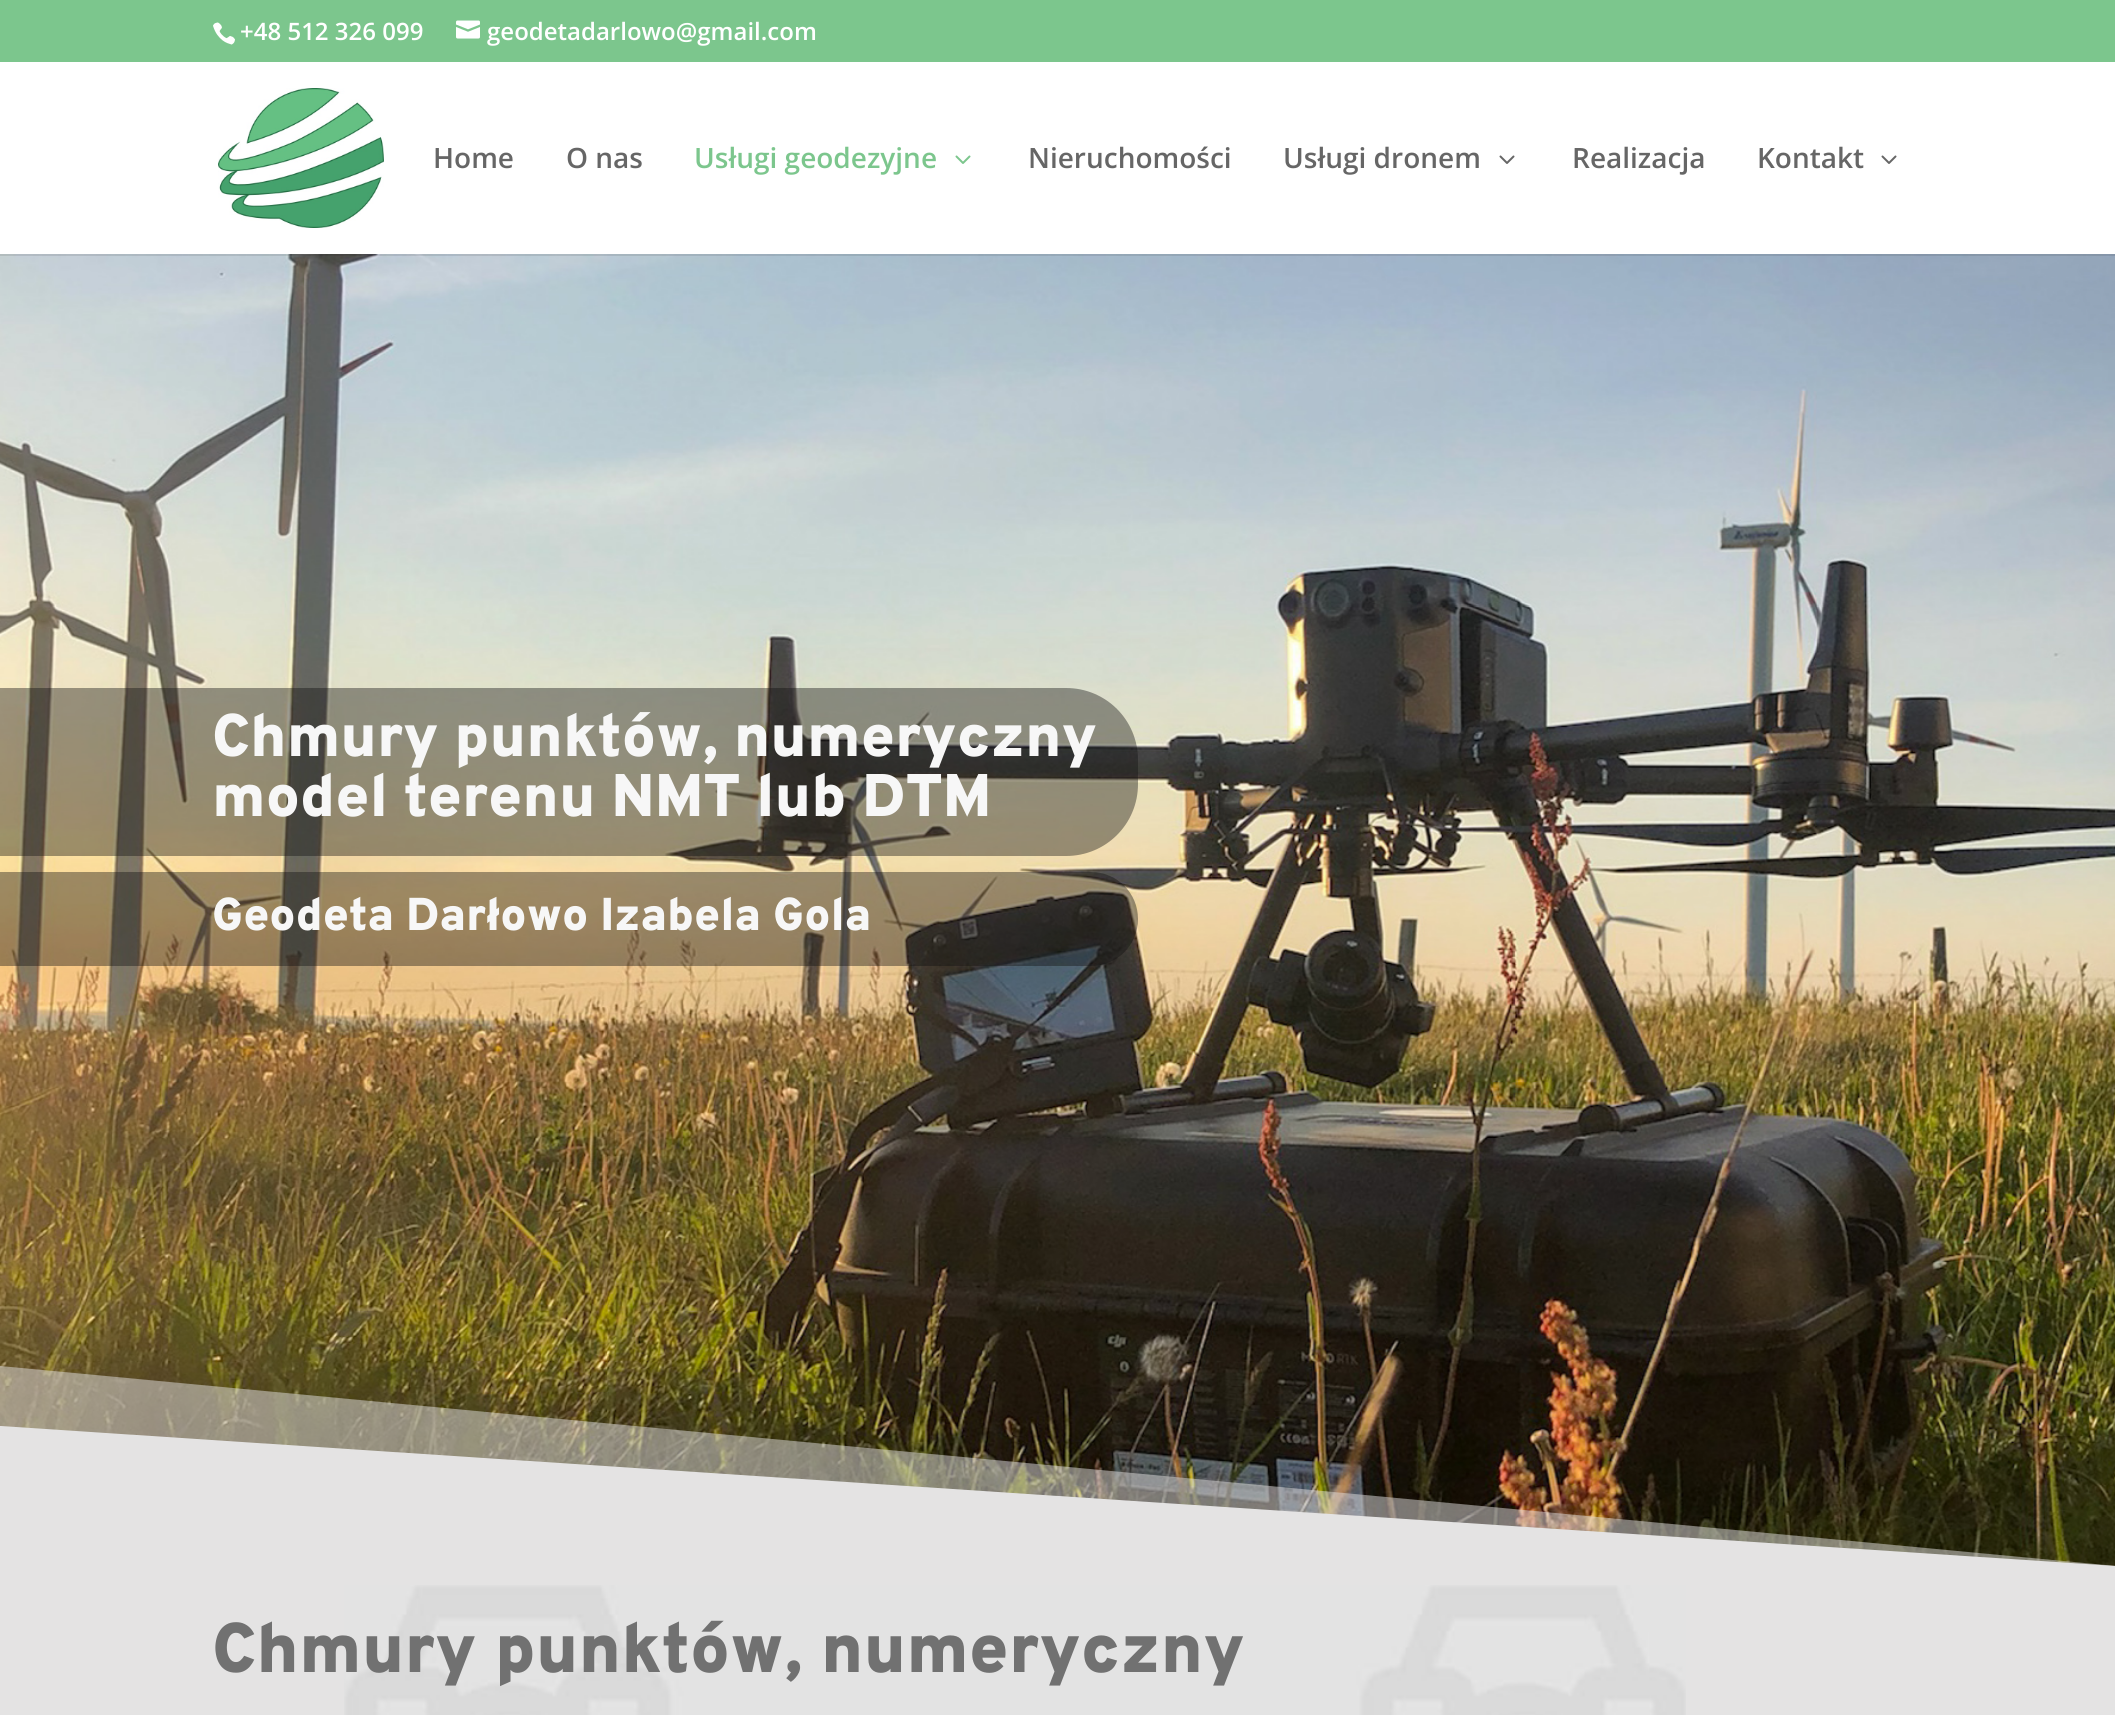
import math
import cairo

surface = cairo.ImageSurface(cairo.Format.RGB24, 2115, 1715)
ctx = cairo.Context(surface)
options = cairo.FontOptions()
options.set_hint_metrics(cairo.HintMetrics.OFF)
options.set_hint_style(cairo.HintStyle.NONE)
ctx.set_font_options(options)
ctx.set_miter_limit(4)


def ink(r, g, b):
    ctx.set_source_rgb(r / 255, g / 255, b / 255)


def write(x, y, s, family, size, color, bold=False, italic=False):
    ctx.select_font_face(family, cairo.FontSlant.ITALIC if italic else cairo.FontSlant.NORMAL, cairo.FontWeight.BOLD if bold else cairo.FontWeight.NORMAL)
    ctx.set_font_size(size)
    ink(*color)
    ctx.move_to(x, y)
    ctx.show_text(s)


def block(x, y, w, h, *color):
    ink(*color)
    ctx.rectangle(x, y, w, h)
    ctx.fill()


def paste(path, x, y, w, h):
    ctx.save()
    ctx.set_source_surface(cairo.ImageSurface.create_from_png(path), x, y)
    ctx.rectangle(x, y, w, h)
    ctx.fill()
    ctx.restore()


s1 = dict(family="Open Sans SemiBold", size=24, color=(255, 255, 255))
s2 = dict(family="Open Sans SemiBold", size=28, color=(102, 102, 102))
s3 = dict(family="Open Sans SemiBold", size=28, color=(124, 198, 141))
s4 = dict(family="Overpass Black", size=60, color=(247, 247, 247))
s5 = dict(family="Overpass Black", size=46, color=(247, 247, 247))
s6 = dict(family="Overpass Black", size=70, color=(113, 113, 113))

ink(255, 255, 255)
ctx.paint()
block(0, 0, 2115, 62, 124, 198, 141)
paste("pic1.png", 213, 22, 22, 23)
write(240, 40, "+48 512 326 099", **s1)
paste("pic2.png", 456, 20, 24, 19)
write(487, 40, "geodetadarlowo@gmail.com", **s1)
paste("pic6.png", 0, 254, 2115, 1312)
ctx.set_source_rgba(0, 0, 0, 0.1)
ctx.rectangle(0, 254, 2115, 2)
ctx.fill()
paste("pic3.png", 218, 88, 166, 140)
write(433, 168, "Home", **s2)
write(566, 168, "O nas", **s2)
write(694, 168, "Usługi geodezyjne", **s3)
paste("pic4.png", 955, 155, 16, 9)
write(1028, 168, "Nieruchomości", **s2)
write(1283, 168, "Usługi dronem", **s2)
paste("pic5.png", 1499, 155, 16, 9)
write(1572, 168, "Realizacja", **s2)
write(1757, 168, "Kontakt", **s2)
paste("pic5.png", 1881, 155, 16, 9)
ctx.set_source_rgba(0.059, 0.059, 0.059, 0.4)
ctx.new_path()
ctx.move_to(0, 688)
ctx.line_to(1066, 688)
ctx.curve_to(1106, 688, 1138, 720, 1138, 760)
ctx.line_to(1138, 784)
ctx.curve_to(1138, 824, 1106, 856, 1066, 856)
ctx.line_to(0, 856)
ctx.close_path()
ctx.fill()
write(212, 756, "Chmury punktów, numeryczny", **s4)
write(212, 816, "model terenu NMT lub DTM", **s4)
ctx.set_source_rgba(0.059, 0.059, 0.059, 0.4)
ctx.new_path()
ctx.move_to(0, 872)
ctx.line_to(1091, 872)
ctx.curve_to(1117, 872, 1138, 893, 1138, 919)
ctx.curve_to(1138, 945, 1117, 966, 1091, 966)
ctx.line_to(0, 966)
ctx.close_path()
ctx.fill()
write(212, 930, "Geodeta Darłowo Izabela Gola", **s5)
ctx.set_source_rgba(0.894, 0.89, 0.89, 0.5)
ctx.new_path()
ctx.move_to(0, 1366)
ctx.line_to(0, 1566)
ctx.line_to(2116, 1566)
ctx.close_path()
ctx.fill()
ink(228, 227, 227)
ctx.new_path()
ctx.move_to(0, 1426)
ctx.line_to(0, 1566)
ctx.line_to(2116, 1566)
ctx.close_path()
ctx.fill()
block(0, 1566, 2115, 149, 228, 227, 227)
paste("pic7.png", 344, 1585, 1342, 130)
write(212, 1672, "Chmury punktów, numeryczny", **s6)
surface.write_to_png("screenshot.png")
